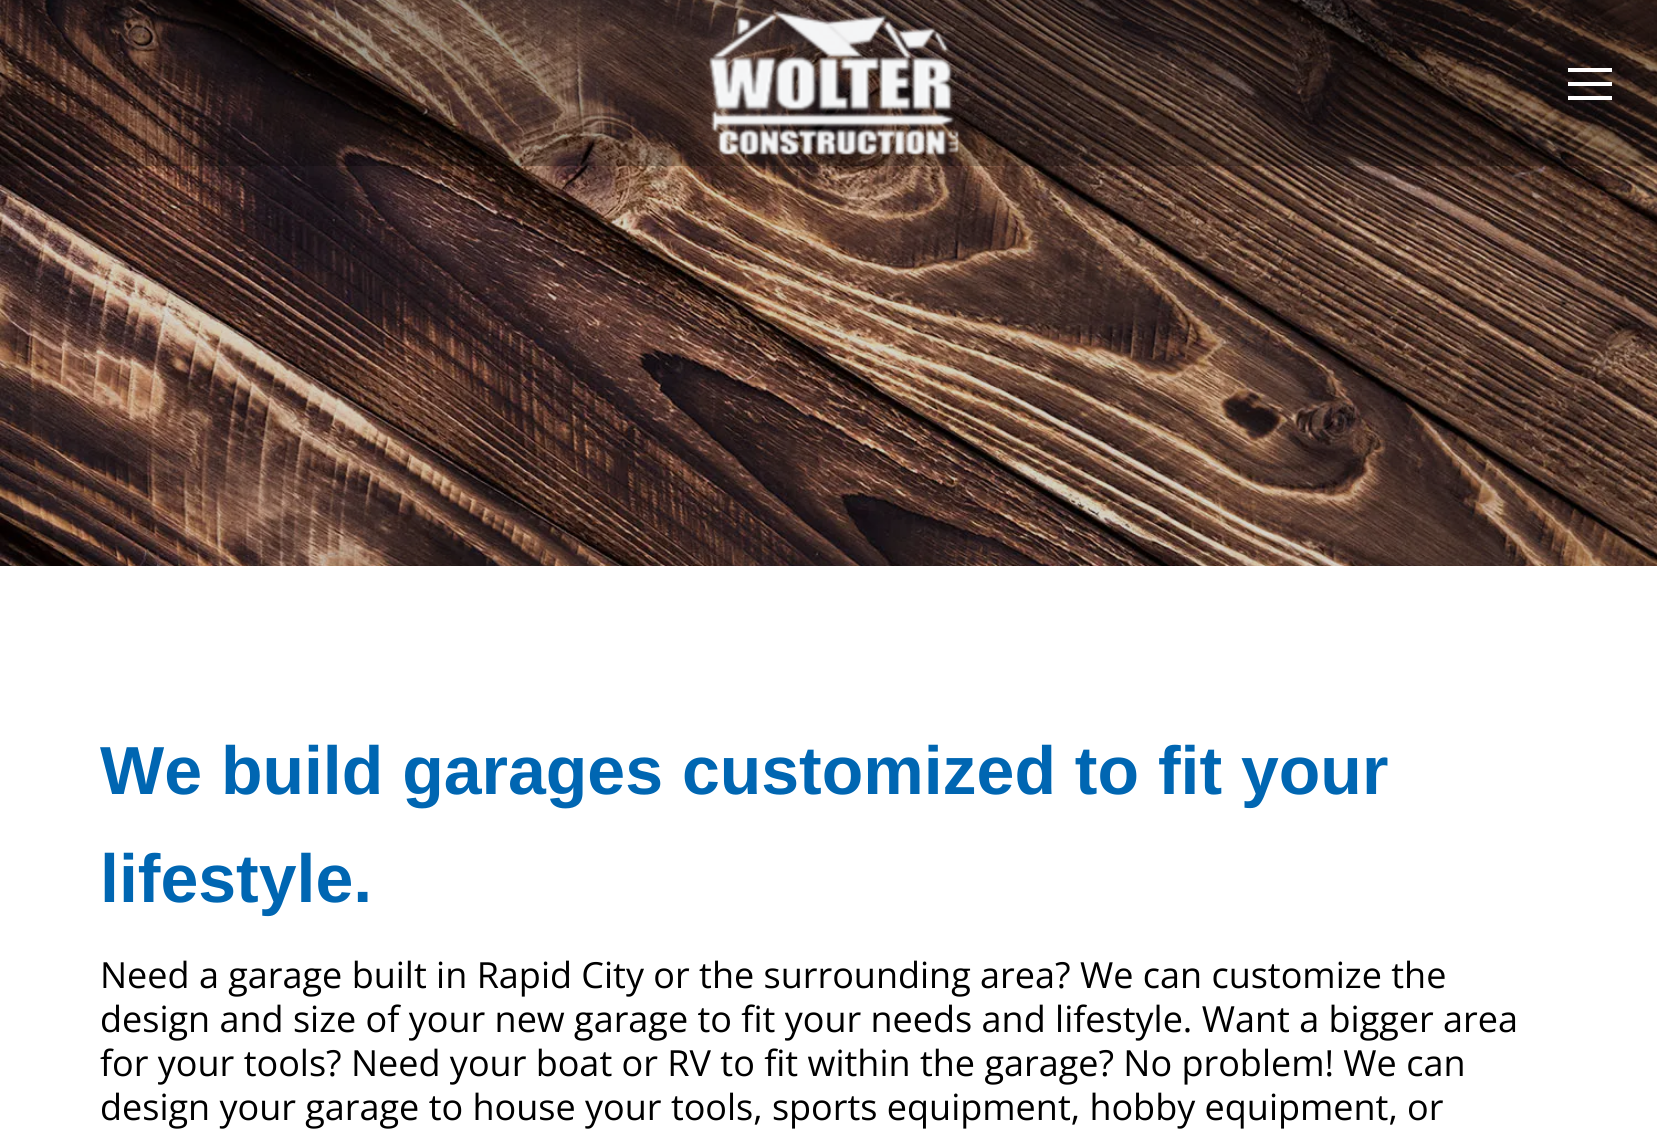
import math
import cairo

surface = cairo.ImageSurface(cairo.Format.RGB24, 1657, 1140)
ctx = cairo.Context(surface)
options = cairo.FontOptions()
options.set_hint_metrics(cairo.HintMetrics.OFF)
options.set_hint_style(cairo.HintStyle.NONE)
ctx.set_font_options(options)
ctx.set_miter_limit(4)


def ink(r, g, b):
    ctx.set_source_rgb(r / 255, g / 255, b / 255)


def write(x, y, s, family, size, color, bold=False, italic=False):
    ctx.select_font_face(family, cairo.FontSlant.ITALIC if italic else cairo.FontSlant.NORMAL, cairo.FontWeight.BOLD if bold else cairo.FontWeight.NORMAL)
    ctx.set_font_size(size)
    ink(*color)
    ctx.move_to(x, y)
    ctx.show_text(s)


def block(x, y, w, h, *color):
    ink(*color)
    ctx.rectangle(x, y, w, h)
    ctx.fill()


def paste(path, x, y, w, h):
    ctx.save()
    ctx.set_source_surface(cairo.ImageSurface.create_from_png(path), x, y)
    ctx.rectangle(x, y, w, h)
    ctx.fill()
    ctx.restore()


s1 = dict(family="Liberation Sans", size=68, color=(0, 102, 178), bold=True)
s2 = dict(family="Open Sans", size=36, color=(0, 0, 0))

ink(255, 255, 255)
ctx.paint()
paste("pic1.png", 0, 0, 1657, 566)
ctx.set_source_rgba(0, 0, 0, 0.25)
ctx.rectangle(0, 0, 1657, 166)
ctx.fill()
paste("pic2.png", 709, 11, 250, 144)
block(1568, 68, 44, 4, 255, 255, 255)
block(1568, 82, 44, 4, 255, 255, 255)
block(1568, 96, 44, 4, 255, 255, 255)
write(100, 794, "We build garages customized to fit your", **s1)
write(100, 902, "lifestyle.", **s1)
write(100, 988, "Need a garage built in Rapid City or the surrounding area? We can customize the", **s2)
write(100, 1032, "design and size of your new garage to fit your needs and lifestyle. Want a bigger area", **s2)
write(100, 1076, "for your tools? Need your boat or RV to fit within the garage? No problem! We can", **s2)
write(100, 1120, "design your garage to house your tools, sports equipment, hobby equipment, or", **s2)
surface.write_to_png("screenshot.png")
